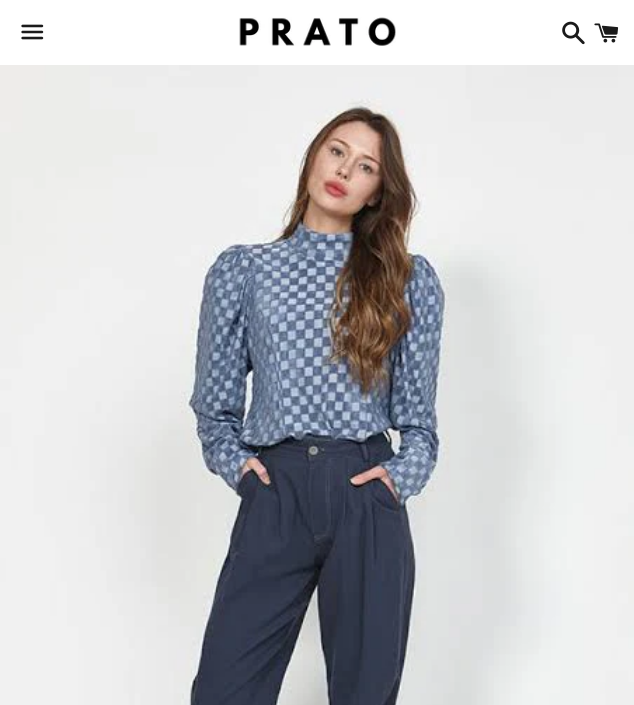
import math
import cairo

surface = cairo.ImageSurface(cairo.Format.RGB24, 634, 705)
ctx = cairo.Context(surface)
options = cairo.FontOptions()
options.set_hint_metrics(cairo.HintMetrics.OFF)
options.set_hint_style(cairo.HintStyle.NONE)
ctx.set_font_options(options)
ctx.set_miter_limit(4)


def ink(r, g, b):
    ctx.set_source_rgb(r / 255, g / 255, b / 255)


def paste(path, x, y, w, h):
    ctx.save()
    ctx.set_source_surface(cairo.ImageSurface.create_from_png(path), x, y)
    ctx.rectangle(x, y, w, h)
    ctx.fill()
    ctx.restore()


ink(255, 255, 255)
ctx.paint()
paste("pic1.png", 21, 24, 23, 16)
paste("pic2.png", 239, 17, 157, 29)
paste("pic3.png", 562, 21, 23, 24)
paste("pic4.png", 594, 23, 25, 20)
paste("pic5.png", 0, 65, 634, 640)
surface.write_to_png("screenshot.png")
